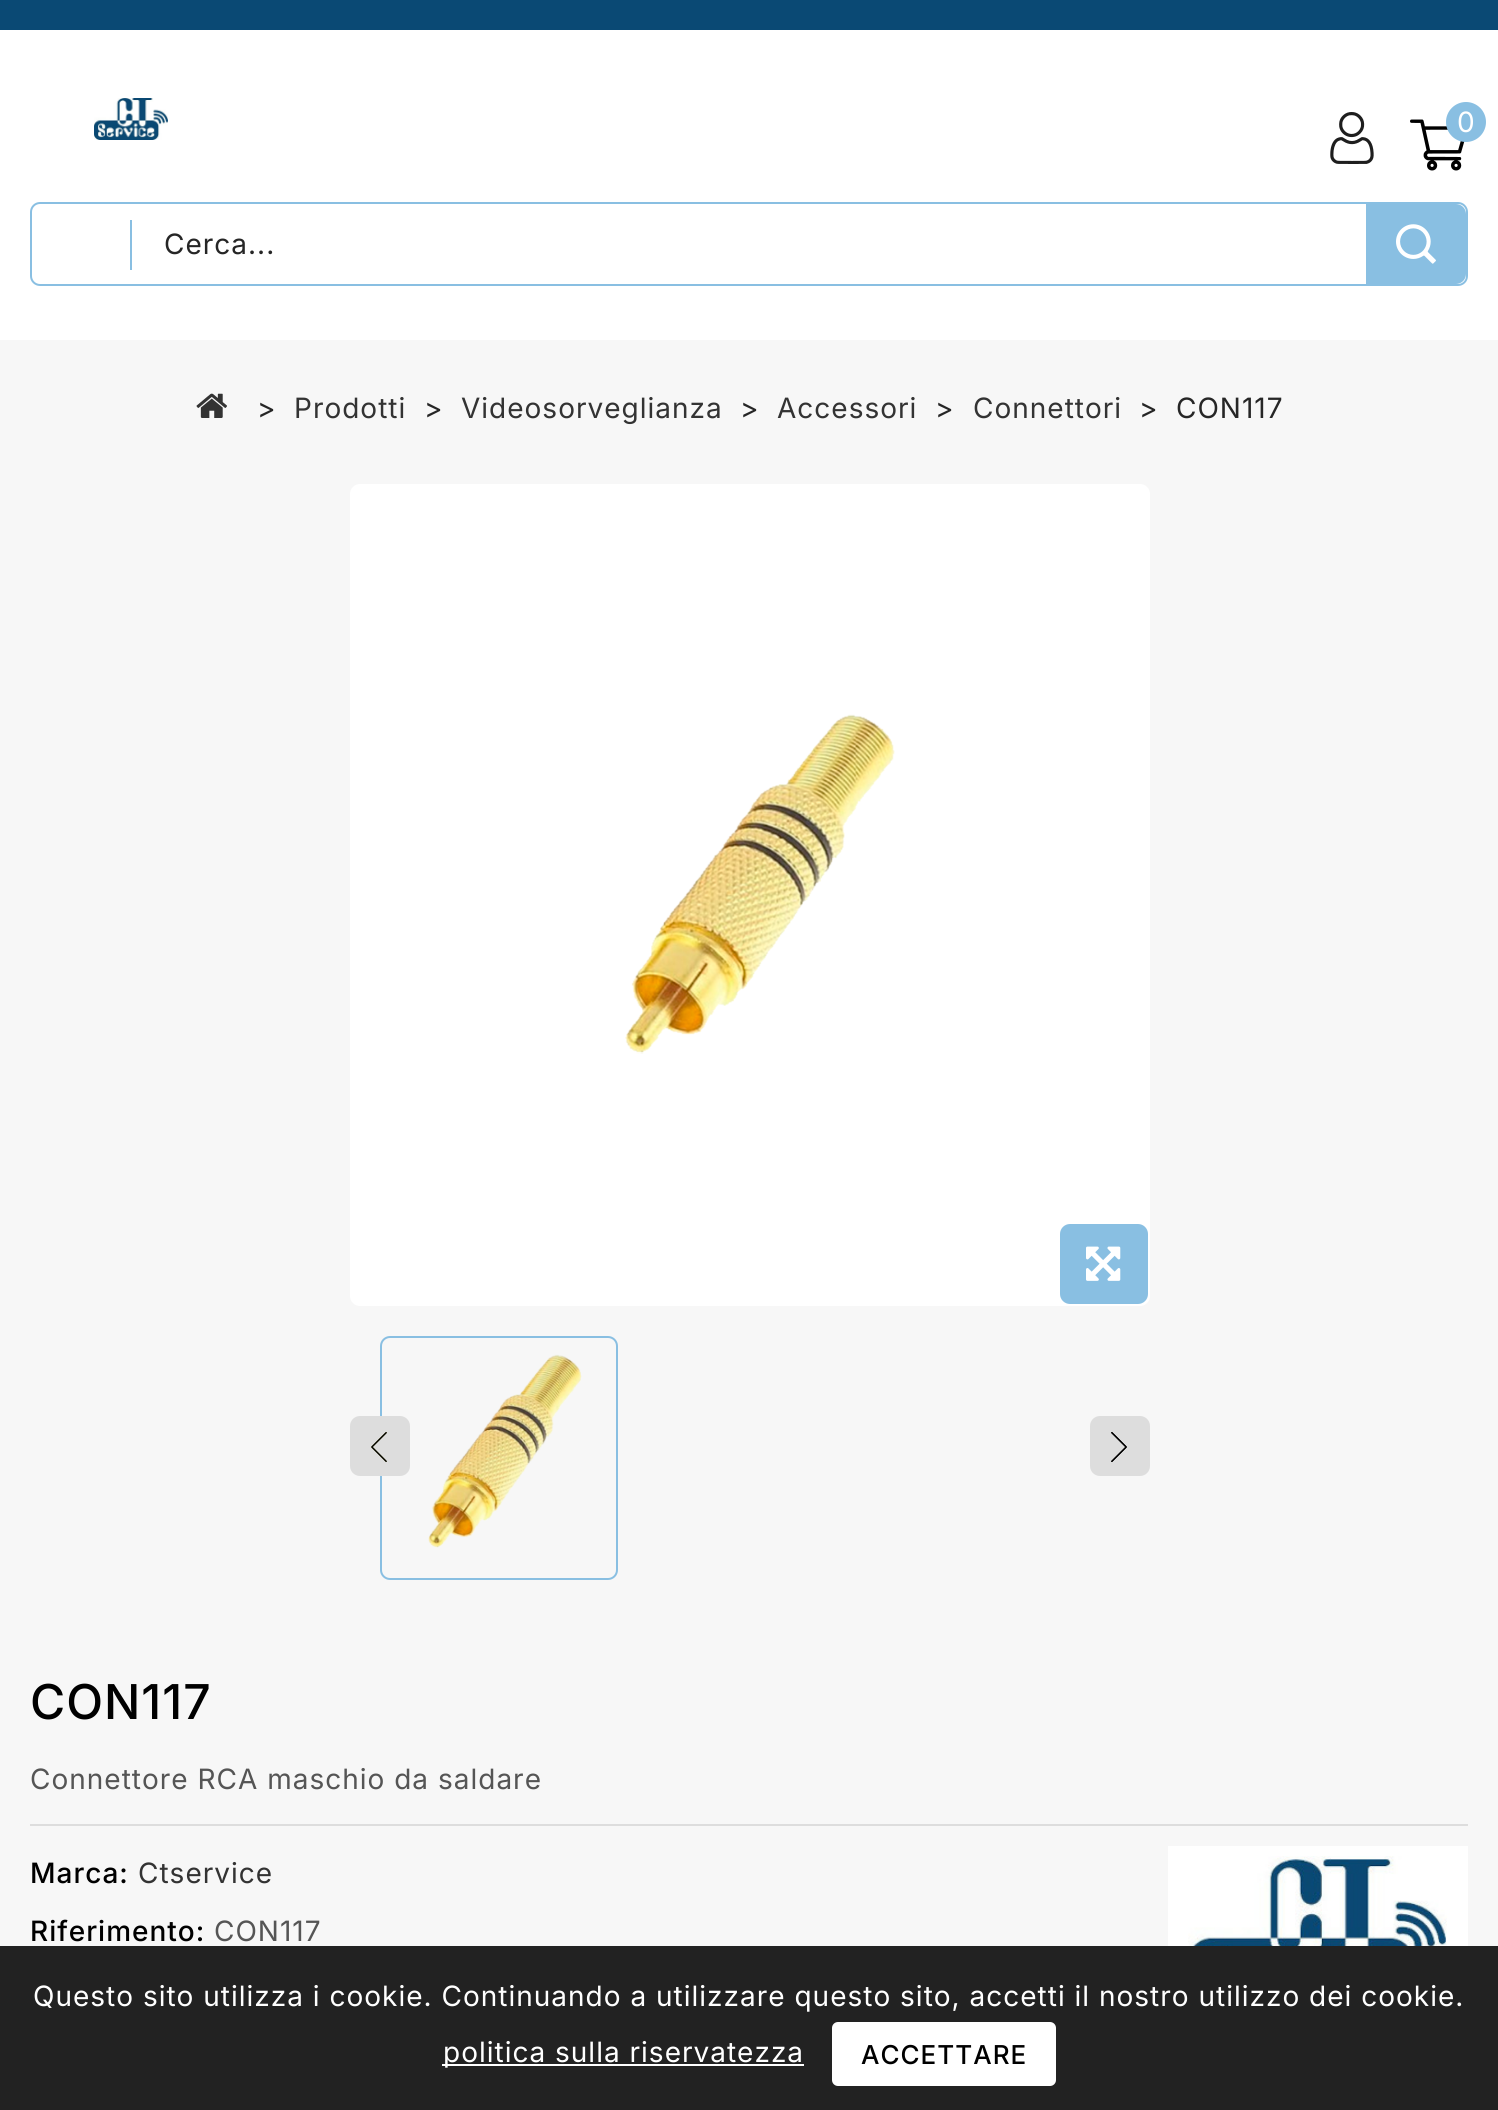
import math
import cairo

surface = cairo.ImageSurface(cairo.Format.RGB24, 1498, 2110)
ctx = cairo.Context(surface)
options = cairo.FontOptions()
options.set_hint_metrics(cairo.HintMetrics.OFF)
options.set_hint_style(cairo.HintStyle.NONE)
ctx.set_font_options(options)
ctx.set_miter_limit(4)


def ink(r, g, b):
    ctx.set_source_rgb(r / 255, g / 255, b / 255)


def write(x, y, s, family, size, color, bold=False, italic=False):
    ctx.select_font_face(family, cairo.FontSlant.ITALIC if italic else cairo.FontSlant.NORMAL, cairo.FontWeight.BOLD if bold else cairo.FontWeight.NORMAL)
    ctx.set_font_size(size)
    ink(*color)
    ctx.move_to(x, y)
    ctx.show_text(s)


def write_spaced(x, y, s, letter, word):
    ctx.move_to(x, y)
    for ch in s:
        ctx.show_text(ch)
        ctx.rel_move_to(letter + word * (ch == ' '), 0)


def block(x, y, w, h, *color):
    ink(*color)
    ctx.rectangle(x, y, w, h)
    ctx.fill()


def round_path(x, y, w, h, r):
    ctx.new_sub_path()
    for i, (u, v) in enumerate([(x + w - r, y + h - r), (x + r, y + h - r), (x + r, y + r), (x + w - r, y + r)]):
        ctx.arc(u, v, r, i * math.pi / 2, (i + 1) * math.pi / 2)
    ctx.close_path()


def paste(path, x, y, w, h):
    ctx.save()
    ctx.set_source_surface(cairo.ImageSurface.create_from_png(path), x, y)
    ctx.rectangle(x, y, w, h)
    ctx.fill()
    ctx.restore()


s1 = dict(family="Inter", size=28, color=(255, 255, 255))

ink(247, 247, 247)
ctx.paint()
block(0, 30, 1498, 310, 255, 255, 255)
block(0, 0, 1498, 30, 10, 73, 116)
paste("pic1.png", 94, 98, 74, 42)
paste("pic2.png", 1330, 112, 44, 52)
paste("pic3.png", 1410, 119, 55, 52)
ink(137, 191, 226)
ctx.arc(1466, 122, 20, 0, 2 * math.pi)
ctx.fill()
write(1457, 132, "0", **s1)
round_path(31, 203, 1436, 82, 9)
ink(137, 191, 226)
ctx.stroke()
block(130, 220, 2, 50, 137, 191, 226)
ink(38, 38, 38)
write_spaced(164, 254, "Cerca...", 1, 0)
ink(137, 191, 226)
ctx.new_path()
ctx.move_to(1366, 204)
ctx.line_to(1456, 204)
ctx.curve_to(1461.5, 204, 1466, 208.5, 1466, 214)
ctx.line_to(1466, 274)
ctx.curve_to(1466, 279.5, 1461.5, 284, 1456, 284)
ctx.line_to(1366, 284)
ctx.close_path()
ctx.fill()
paste("pic4.png", 1396, 224, 40, 40)
paste("pic5.png", 196, 393, 31, 25)
ink(38, 38, 38)
write_spaced(257, 418, ">", 1, 0)
ink(51, 51, 51)
write_spaced(294, 418, "Prodotti", 1, 0)
ink(38, 38, 38)
write_spaced(424, 418, ">", 1, 0)
ink(51, 51, 51)
write_spaced(461, 418, "Videosorveglianza", 1, 0)
ink(38, 38, 38)
write_spaced(740, 418, ">", 1, 0)
ink(51, 51, 51)
write_spaced(777, 418, "Accessori", 1, 0)
ink(38, 38, 38)
write_spaced(935, 418, ">", 1, 0)
ink(51, 51, 51)
write_spaced(973, 418, "Connettori", 1, 0)
ink(38, 38, 38)
write_spaced(1139, 418, ">", 1, 0)
write_spaced(1176, 418, "CON117", 1, 0)
ink(255, 255, 255)
round_path(350, 484, 800, 822, 10)
ctx.fill()
paste("pic6.png", 625, 714, 270, 340)
ink(137, 191, 226)
round_path(1060, 1224, 88, 80, 10)
ctx.fill()
paste("pic7.png", 1086, 1246, 35, 35)
round_path(381, 1337, 236, 242, 9)
ctx.stroke()
paste("pic8.png", 428, 1354, 154, 194)
ink(221, 221, 221)
round_path(350, 1416, 60, 60, 10)
ctx.fill()
paste("pic9.png", 371, 1432, 16, 30)
round_path(1090, 1416, 60, 60, 10)
ctx.fill()
paste("pic10.png", 1111, 1432, 16, 30)
ctx.select_font_face("Inter Medium")
ctx.set_font_size(48)
ink(0, 0, 0)
write_spaced(30, 1719, "CON117", 1, 0)
ctx.select_font_face("Inter")
ctx.set_font_size(28)
ink(85, 85, 85)
write_spaced(30, 1789, "Connettore RCA maschio da saldare", 1, 0)
block(30, 1824, 1438, 2, 221, 221, 221)
ctx.select_font_face("Inter Medium")
ink(0, 0, 0)
write_spaced(30, 1883, "Marca:", 1, 0)
ctx.select_font_face("Inter")
ink(51, 51, 51)
write_spaced(138, 1883, "Ctservice", 1, 0)
block(1168, 1846, 300, 100, 255, 255, 255)
paste("pic11.png", 1188, 1856, 259, 90)
ctx.select_font_face("Inter Medium")
ink(0, 0, 0)
write_spaced(30, 1941, "Riferimento:", 1, 0)
ctx.select_font_face("Inter")
ink(85, 85, 85)
write_spaced(214, 1941, "CON117", 1, 0)
block(0, 1946, 1498, 164, 34, 34, 34)
ink(255, 255, 255)
write_spaced(33, 2006, "Questo sito utilizza i cookie. Continuando a utilizzare questo sito, accetti il nostro utilizzo dei cookie.", 1, 0)
block(442, 2064, 362, 2, 255, 255, 255)
write_spaced(443, 2062, "politica sulla riservatezza", 1, 0)
round_path(832, 2022, 224, 64, 6)
ctx.fill()
ctx.select_font_face("Inter Medium")
ctx.set_font_size(26)
ink(0, 0, 0)
write_spaced(861, 2064, "ACCETTARE", 1, 0)
surface.write_to_png("screenshot.png")
